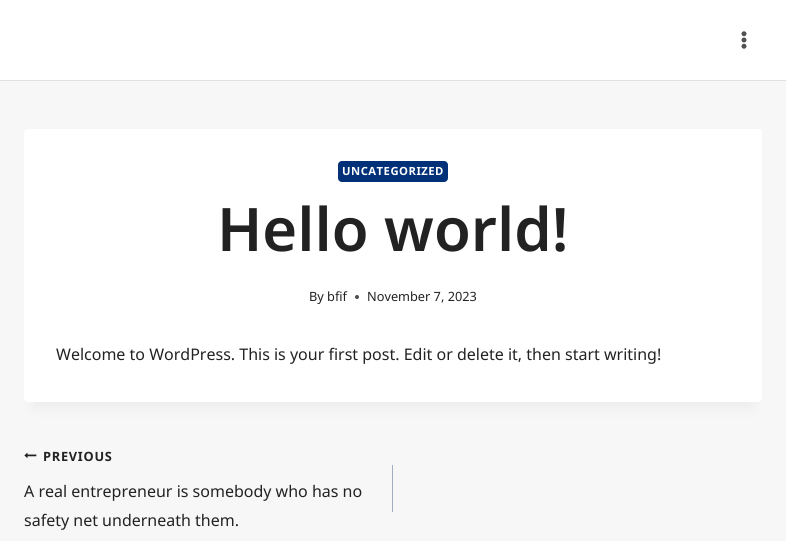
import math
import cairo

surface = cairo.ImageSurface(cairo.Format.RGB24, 786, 541)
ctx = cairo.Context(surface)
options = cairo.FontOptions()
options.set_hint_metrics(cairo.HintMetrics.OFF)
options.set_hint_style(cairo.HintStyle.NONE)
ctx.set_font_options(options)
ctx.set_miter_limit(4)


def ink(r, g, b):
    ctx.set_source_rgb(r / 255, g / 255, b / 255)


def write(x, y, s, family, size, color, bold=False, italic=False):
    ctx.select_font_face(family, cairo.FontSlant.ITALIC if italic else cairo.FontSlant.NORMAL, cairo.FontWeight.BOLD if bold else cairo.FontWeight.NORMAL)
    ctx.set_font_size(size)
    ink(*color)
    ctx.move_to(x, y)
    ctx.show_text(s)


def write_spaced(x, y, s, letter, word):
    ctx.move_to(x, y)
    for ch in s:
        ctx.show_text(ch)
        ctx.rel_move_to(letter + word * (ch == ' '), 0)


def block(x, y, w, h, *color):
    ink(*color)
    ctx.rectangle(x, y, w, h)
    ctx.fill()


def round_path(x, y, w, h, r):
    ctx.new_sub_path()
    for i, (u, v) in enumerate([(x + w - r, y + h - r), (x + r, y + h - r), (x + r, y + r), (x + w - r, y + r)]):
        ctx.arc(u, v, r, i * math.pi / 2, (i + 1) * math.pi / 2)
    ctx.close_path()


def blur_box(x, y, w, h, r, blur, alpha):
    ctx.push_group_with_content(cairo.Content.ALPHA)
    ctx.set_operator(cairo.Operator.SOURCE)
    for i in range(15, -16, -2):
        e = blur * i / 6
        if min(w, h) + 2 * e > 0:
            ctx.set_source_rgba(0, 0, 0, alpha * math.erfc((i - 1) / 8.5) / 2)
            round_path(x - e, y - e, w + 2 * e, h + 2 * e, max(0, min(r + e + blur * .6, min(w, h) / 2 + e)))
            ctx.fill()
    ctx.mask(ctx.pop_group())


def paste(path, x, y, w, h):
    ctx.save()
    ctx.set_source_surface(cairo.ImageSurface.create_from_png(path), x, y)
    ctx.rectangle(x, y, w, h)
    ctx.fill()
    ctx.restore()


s1 = dict(family="Noto Sans Thai SemiBold", size=60, color=(34, 34, 34))
s2 = dict(family="Noto Sans Thai", size=12.75, color=(34, 34, 34))
s3 = dict(family="Noto Sans Thai", size=16, color=(34, 34, 34))

ink(247, 247, 247)
ctx.paint()
block(0, 0, 786, 80, 255, 255, 255)
block(0, 80, 786, 1, 225, 225, 225)
paste("pic1.png", 741, 31, 6, 18)
ink(0, 0, 0)
blur_box(34, 154, 718, 253, 0, 7.5, 0.05)
ink(255, 255, 255)
round_path(24, 129, 738, 273, 4)
ctx.fill()
ink(0, 48, 120)
round_path(338, 161, 110, 21, 4)
ctx.fill()
ctx.select_font_face("Noto Sans Thai", cairo.FontSlant.NORMAL, cairo.FontWeight.BOLD)
ctx.set_font_size(11.25)
ink(255, 255, 255)
write_spaced(342, 175, "UNCATEGORIZED", 0.5, 0)
write(217, 251, "Hello world!", **s1)
write(309, 301, "By bfif", **s2)
ink(78, 78, 78)
ctx.new_path()
ctx.arc(357, 297, 2, 0, 2 * math.pi)
ctx.fill()
write(367, 301, "November 7, 2023", **s2)
write(56, 360, "Welcome to WordPress. This is your first post. Edit or delete it, then start writing!", **s3)
paste("pic2.png", 24, 452, 13, 6)
ctx.select_font_face("Noto Sans Thai", cairo.FontSlant.NORMAL, cairo.FontWeight.BOLD)
ctx.set_font_size(12.75)
write_spaced(43, 461, "PREVIOUS", 0.75, 0)
write(24, 497, "A real entrepreneur is somebody who has no", **s3)
write(24, 526, "safety net underneath them.", **s3)
block(392, 465, 1, 47, 160, 174, 192)
surface.write_to_png("screenshot.png")
